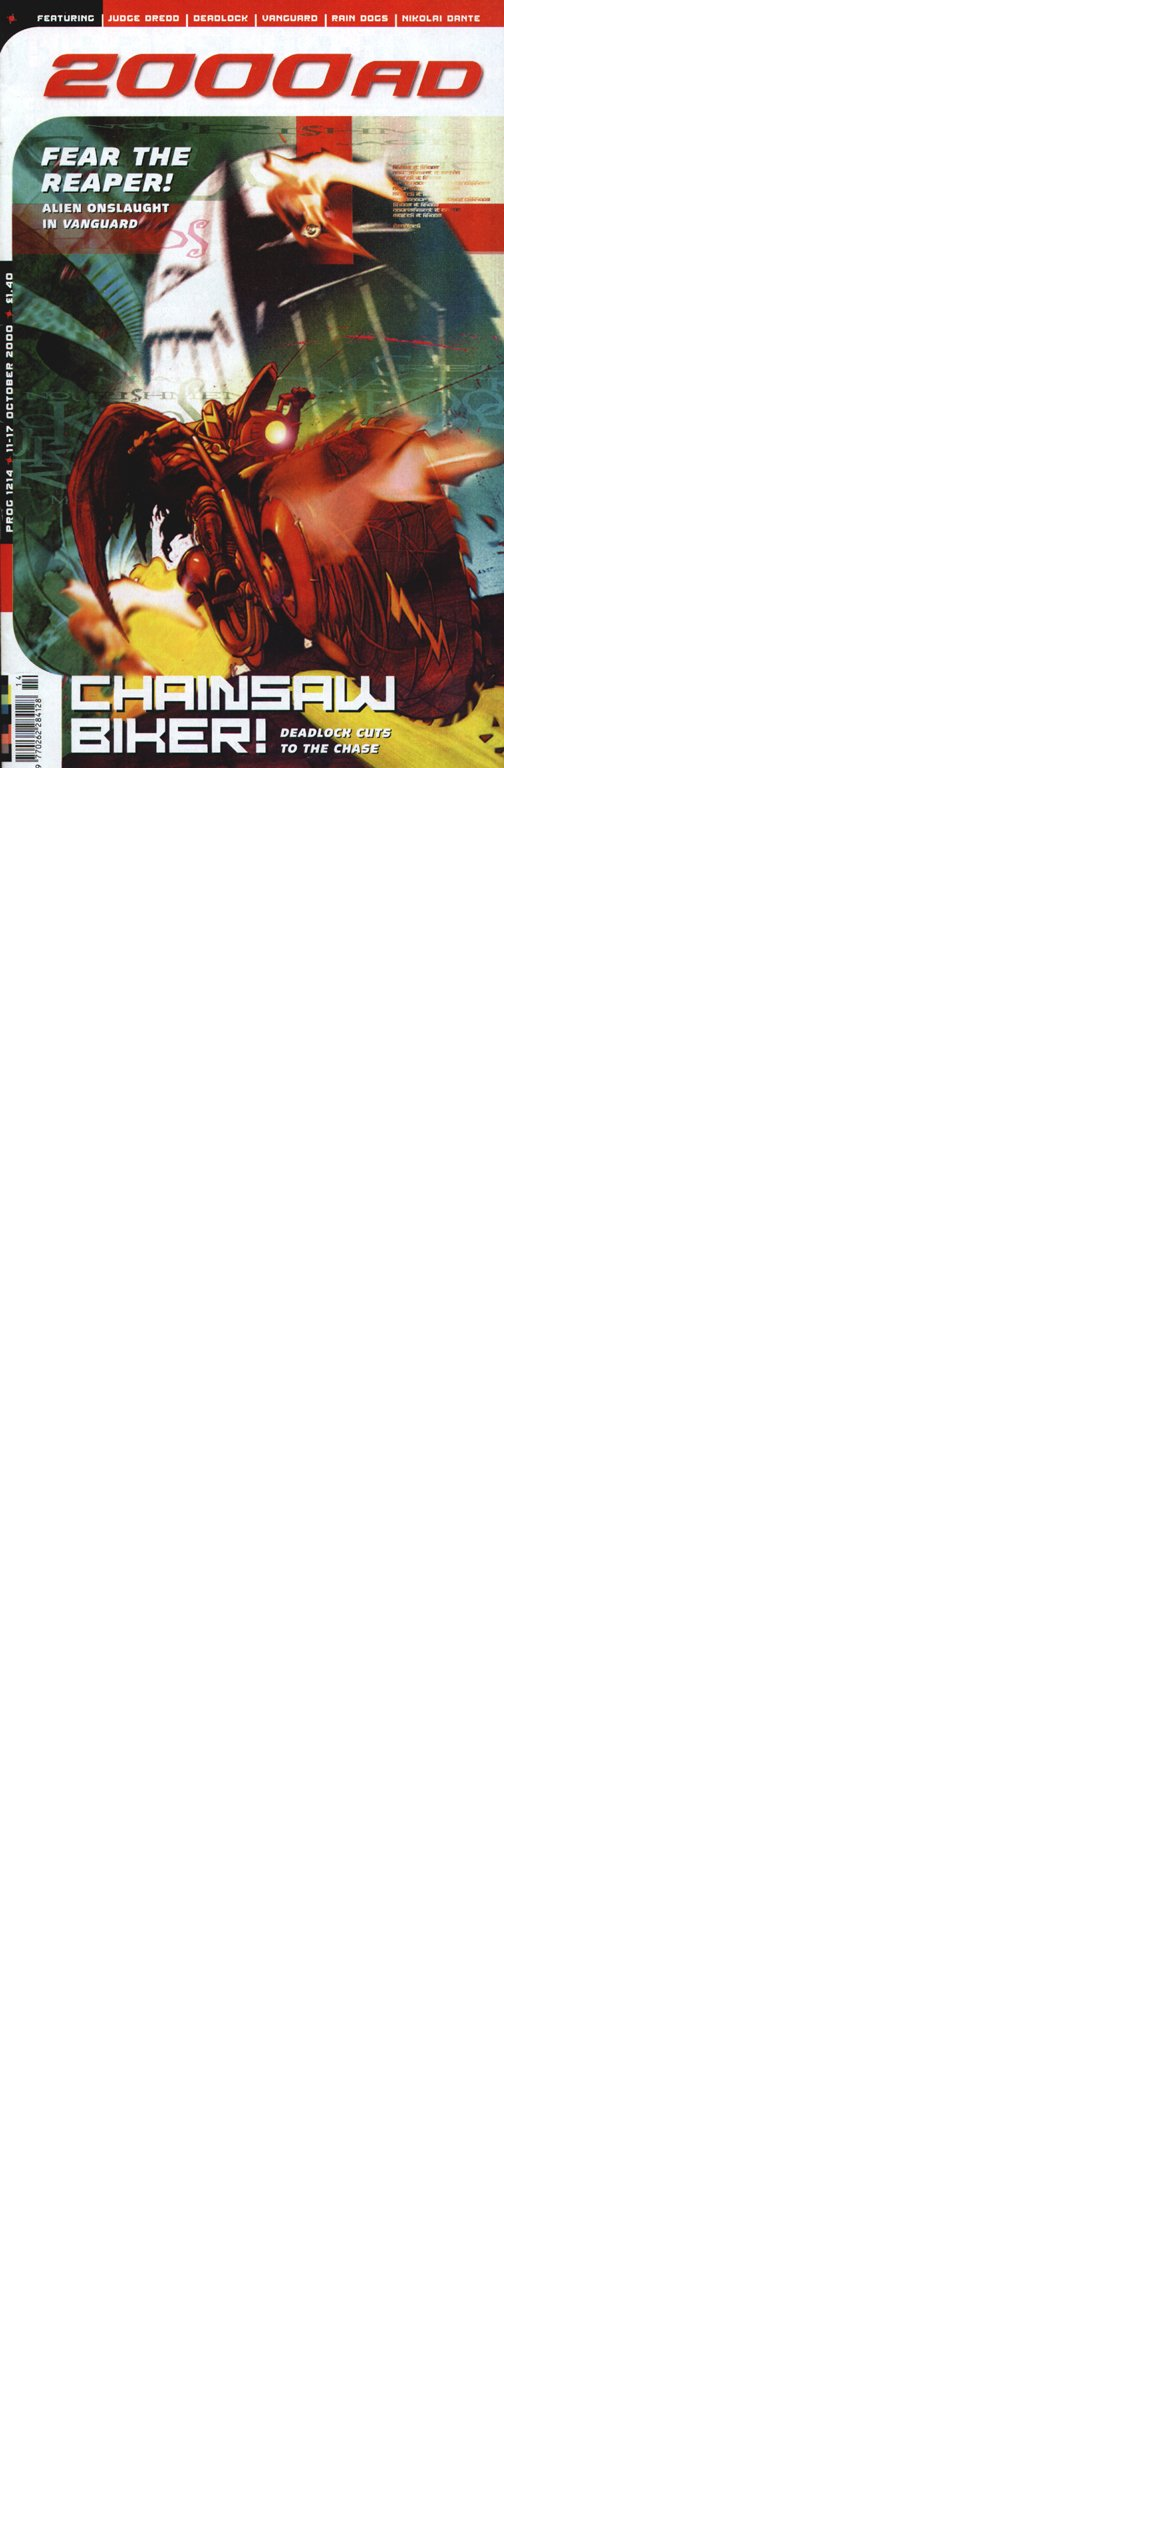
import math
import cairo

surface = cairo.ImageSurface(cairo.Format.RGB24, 1152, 2532)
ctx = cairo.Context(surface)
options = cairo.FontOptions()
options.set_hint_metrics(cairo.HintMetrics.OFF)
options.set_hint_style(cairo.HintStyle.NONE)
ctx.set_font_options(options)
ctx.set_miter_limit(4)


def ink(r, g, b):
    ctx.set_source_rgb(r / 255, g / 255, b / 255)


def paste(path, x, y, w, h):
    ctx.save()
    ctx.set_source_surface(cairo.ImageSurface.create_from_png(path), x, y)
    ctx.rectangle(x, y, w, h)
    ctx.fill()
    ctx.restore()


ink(255, 255, 255)
ctx.paint()
paste("pic1.png", 0, 0, 504, 768)
surface.write_to_png("screenshot.png")
